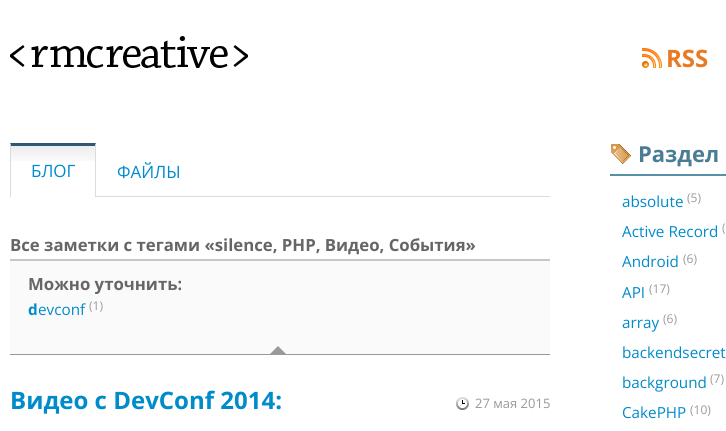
import math
import cairo

surface = cairo.ImageSurface(cairo.Format.RGB24, 726, 431)
ctx = cairo.Context(surface)
options = cairo.FontOptions()
options.set_hint_metrics(cairo.HintMetrics.OFF)
options.set_hint_style(cairo.HintStyle.NONE)
ctx.set_font_options(options)
ctx.set_miter_limit(4)


def ink(r, g, b):
    ctx.set_source_rgb(r / 255, g / 255, b / 255)


def write(x, y, s, family, size, color, bold=False, italic=False):
    ctx.select_font_face(family, cairo.FontSlant.ITALIC if italic else cairo.FontSlant.NORMAL, cairo.FontWeight.BOLD if bold else cairo.FontWeight.NORMAL)
    ctx.set_font_size(size)
    ink(*color)
    ctx.move_to(x, y)
    ctx.show_text(s)


def block(x, y, w, h, *color):
    ink(*color)
    ctx.rectangle(x, y, w, h)
    ctx.fill()


def paste(path, x, y, w, h):
    ctx.save()
    ctx.set_source_surface(cairo.ImageSurface.create_from_png(path), x, y)
    ctx.rectangle(x, y, w, h)
    ctx.fill()
    ctx.restore()


s1 = dict(family="Open Sans", size=24, color=(233, 122, 33), bold=True)
s2 = dict(family="Open Sans", size=17, color=(0, 139, 203))
s3 = dict(family="Open Sans", size=16.75, color=(102, 102, 102), bold=True)
s4 = dict(family="Open Sans", size=15.25, color=(0, 139, 203), bold=True)
s5 = dict(family="Open Sans", size=15.25, color=(0, 139, 203))
s6 = dict(family="Open Sans", size=12, color=(153, 153, 153))
s7 = dict(family="Open Sans", size=24, color=(0, 139, 203), bold=True)
s8 = dict(family="Open Sans", size=13, color=(153, 153, 153))
s9 = dict(family="Open Sans", size=22, color=(74, 125, 148), bold=True)

ink(255, 255, 255)
ctx.paint()
paste("pic1.png", 10, 36, 238, 32)
paste("pic2.png", 642, 48, 21, 20)
write(666, 67, "RSS", **s1)
block(96, 196, 454, 1, 220, 220, 220)
paste("pic3.png", 11, 146, 84, 15)
ink(47, 89, 115)
ctx.new_path()
ctx.move_to(10, 143)
ctx.line_to(96, 143)
ctx.line_to(95, 146)
ctx.line_to(11, 146)
ctx.close_path()
ctx.fill()
ink(220, 220, 220)
ctx.new_path()
ctx.move_to(96, 143)
ctx.line_to(96, 197)
ctx.line_to(95, 197)
ctx.line_to(95, 146)
ctx.close_path()
ctx.fill()
ctx.new_path()
ctx.move_to(10, 197)
ctx.line_to(10, 143)
ctx.line_to(11, 146)
ctx.line_to(11, 197)
ctx.close_path()
ctx.fill()
write(31, 177, "БЛОГ", **s2)
write(117, 178, "ФАЙЛЫ", **s2)
write(10, 251, "Все заметки с тегами «silence, PHP, Видео, События»", **s3)
block(10, 261, 540, 93, 250, 250, 250)
block(10, 259, 540, 2, 198, 198, 198)
block(10, 354, 540, 1, 153, 153, 153)
write(28, 290, "Можно уточнить:", **s3)
write(28, 315, "d", **s4)
write(38, 315, "evconf", **s5)
write(89, 310, "(1)", **s6)
ctx.new_path()
ctx.move_to(286, 354)
ctx.line_to(270, 354)
ctx.line_to(278, 346)
ctx.close_path()
ctx.fill()
write(10, 409, "Видео с DevConf 2014:", **s7)
paste("pic4.png", 456, 397, 13, 13)
write(475, 408, "27 мая 2015", **s8)
paste("pic5.png", 610, 144, 21, 20)
block(610, 174, 116, 2, 86, 143, 166)
write(638, 162, "Раздел", **s9)
write(622, 207, "absolute", **s5)
write(687, 202, "(5)", **s6)
write(622, 237, "Active Record", **s5)
write(722, 232, "(", **s6)
write(622, 267, "Android", **s5)
write(683, 263, "(6)", **s6)
write(622, 298, "API", **s5)
write(649, 293, "(17)", **s6)
write(622, 328, "array", **s5)
write(663, 323, "(6)", **s6)
write(622, 358, "backendsecret", **s5)
write(622, 388, "background", **s5)
write(710, 383, "(7)", **s6)
write(622, 418, "CakePHP", **s5)
write(690, 414, "(10)", **s6)
surface.write_to_png("screenshot.png")
